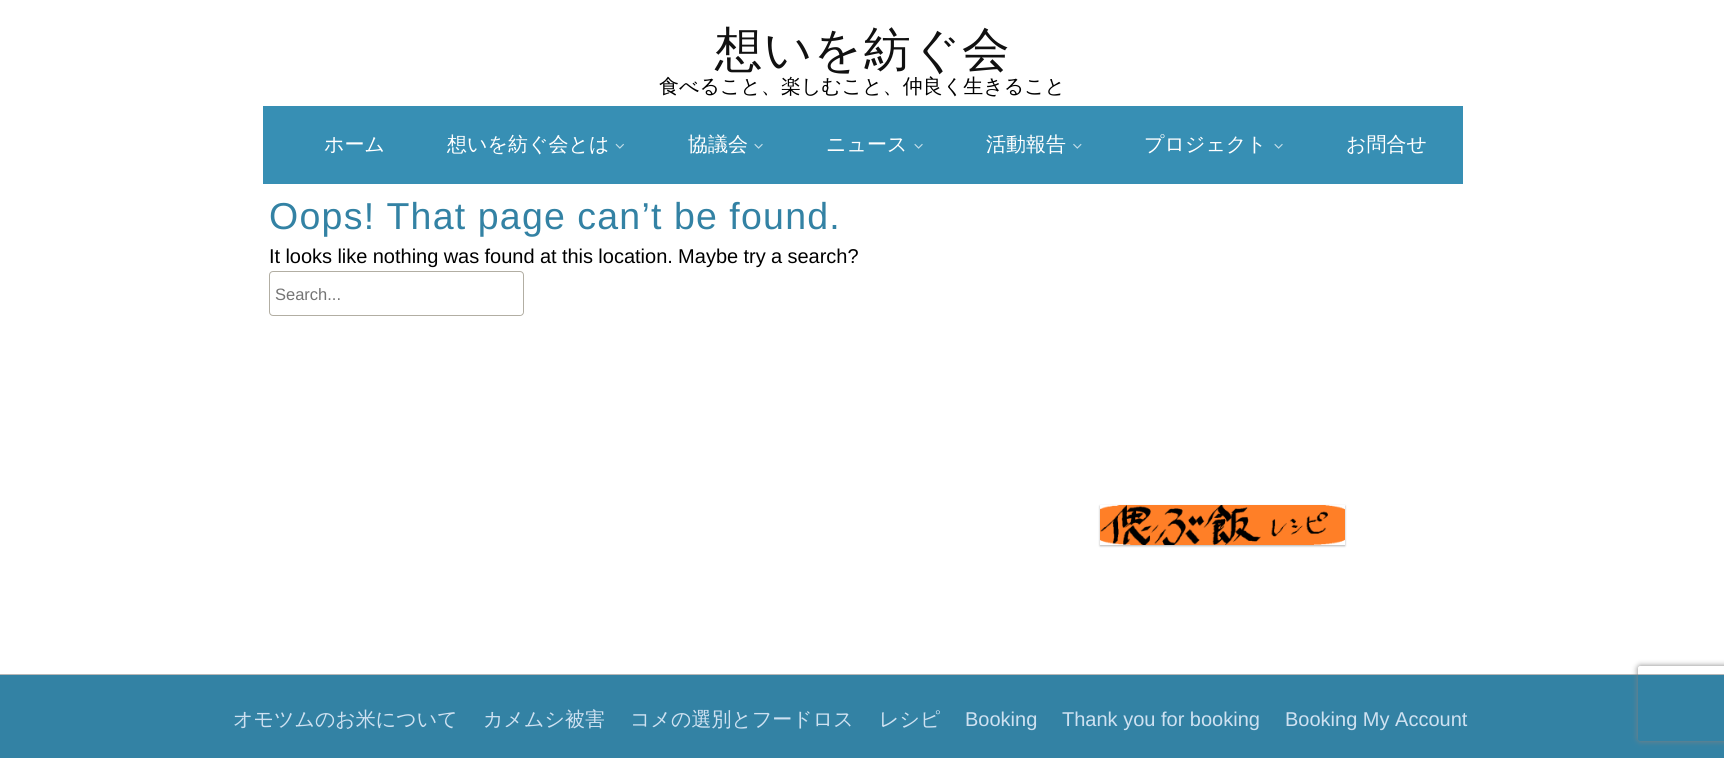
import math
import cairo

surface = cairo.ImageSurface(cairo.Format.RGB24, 1724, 758)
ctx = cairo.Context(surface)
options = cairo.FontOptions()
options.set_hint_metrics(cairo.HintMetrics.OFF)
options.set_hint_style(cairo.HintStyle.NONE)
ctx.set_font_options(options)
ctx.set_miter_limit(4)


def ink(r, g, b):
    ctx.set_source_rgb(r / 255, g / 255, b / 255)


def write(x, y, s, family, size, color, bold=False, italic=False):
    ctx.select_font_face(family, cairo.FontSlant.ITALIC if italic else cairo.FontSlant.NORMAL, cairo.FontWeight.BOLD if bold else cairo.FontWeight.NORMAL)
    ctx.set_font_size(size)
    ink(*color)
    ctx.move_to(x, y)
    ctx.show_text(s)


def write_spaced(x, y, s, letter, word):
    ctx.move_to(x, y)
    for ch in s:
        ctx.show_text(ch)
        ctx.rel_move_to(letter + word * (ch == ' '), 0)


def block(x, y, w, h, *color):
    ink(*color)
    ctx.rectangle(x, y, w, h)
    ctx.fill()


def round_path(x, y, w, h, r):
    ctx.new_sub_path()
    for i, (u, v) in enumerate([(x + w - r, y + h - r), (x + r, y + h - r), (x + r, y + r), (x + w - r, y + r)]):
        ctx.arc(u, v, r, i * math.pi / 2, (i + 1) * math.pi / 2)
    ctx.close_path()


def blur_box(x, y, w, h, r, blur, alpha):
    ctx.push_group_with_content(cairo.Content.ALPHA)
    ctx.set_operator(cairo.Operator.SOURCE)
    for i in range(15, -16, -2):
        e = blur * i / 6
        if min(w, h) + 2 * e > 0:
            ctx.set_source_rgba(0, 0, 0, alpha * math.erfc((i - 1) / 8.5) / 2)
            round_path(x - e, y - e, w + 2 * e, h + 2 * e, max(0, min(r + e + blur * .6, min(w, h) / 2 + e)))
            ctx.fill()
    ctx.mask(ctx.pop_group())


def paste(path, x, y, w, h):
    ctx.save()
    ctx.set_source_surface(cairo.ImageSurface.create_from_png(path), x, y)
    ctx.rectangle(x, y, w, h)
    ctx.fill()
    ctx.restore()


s1 = dict(family="WenQuanYi Zen Hei Medium", size=20, color=(0, 0, 0))
s2 = dict(family="WenQuanYi Zen Hei Medium", size=20, color=(255, 255, 255))
s3 = dict(family="Liberation Sans", size=16.5, color=(117, 117, 117))
s4 = dict(family="WenQuanYi Zen Hei Medium", size=20, color=(206, 225, 241))
s5 = dict(family="Liberation Sans", size=20, color=(206, 225, 241))

ink(255, 255, 255)
ctx.paint()
ctx.select_font_face("WenQuanYi Zen Hei Medium")
ctx.set_font_size(47.5)
ink(17, 17, 17)
write_spaced(715, 66, "想いを紡ぐ会", 1.25, 0)
write(659, 93, "食べること、楽しむこと、仲良く生きること", **s1)
block(263, 106, 1200, 78, 55, 143, 180)
write(324, 151, "ホーム", **s2)
write(447, 151, "想いを紡ぐ会とは", **s2)
paste("pic1.png", 615, 143, 9, 6)
write(688, 151, "協議会", **s2)
paste("pic2.png", 754, 143, 9, 6)
write(826, 151, "ニュース", **s2)
paste("pic2.png", 914, 143, 9, 6)
write(986, 151, "活動報告", **s2)
paste("pic3.png", 1073, 143, 9, 6)
write(1144, 151, "プロジェクト", **s2)
paste("pic2.png", 1274, 143, 9, 6)
write(1346, 151, "お問合せ", **s2)
ctx.select_font_face("Liberation Sans")
ctx.set_font_size(37.5)
ink(51, 130, 164)
write_spaced(269, 229, "Oops! That page can’t be found.", 1.25, -0.5)
ctx.set_font_size(20)
ink(0, 0, 0)
write_spaced(269, 263, "It looks like nothing was found at this location. Maybe try a search?", 0, -0.25)
round_path(269.5, 271.5, 254, 44, 3.5)
ink(178, 174, 163)
ctx.set_line_width(1)
ctx.stroke()
write(275, 300, "Search...", **s3)
ink(255, 255, 255)
round_path(476, 273, 47, 42, 4)
ctx.fill()
ink(0, 0, 0)
blur_box(1100, 506, 245, 40, 0, 1, 0.3)
paste("pic4.png", 1100, 505, 245, 40)
block(0, 675, 1724, 83, 51, 130, 164)
block(0, 674, 1724, 1, 183, 183, 183)
write(233, 726, "オモツムのお米について", **s4)
write(483, 726, "カメムシ被害", **s4)
write(630, 726, "コメの選別とフードロス", **s4)
write(879, 726, "レシピ", **s4)
write(965, 726, "Booking", **s5)
write(1062, 726, "Thank you for booking", **s5)
write(1285, 726, "Booking My Account", **s5)
ctx.save()
ctx.set_fill_rule(cairo.FillRule.EVEN_ODD)
ctx.new_path()
ctx.move_to(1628, 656)
ctx.line_to(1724, 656)
ctx.line_to(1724, 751)
ctx.line_to(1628, 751)
ctx.close_path()
ctx.move_to(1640.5, 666)
ctx.line_to(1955.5, 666)
ctx.curve_to(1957, 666, 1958, 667, 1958, 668.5)
ctx.line_to(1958, 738.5)
ctx.curve_to(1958, 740, 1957, 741, 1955.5, 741)
ctx.line_to(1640.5, 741)
ctx.curve_to(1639, 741, 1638, 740, 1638, 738.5)
ctx.line_to(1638, 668.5)
ctx.curve_to(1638, 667, 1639, 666, 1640.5, 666)
ctx.close_path()
ctx.clip()
ink(128, 128, 128)
blur_box(1638, 666, 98, 75, 2.5, 3, 1)
ctx.restore()
surface.write_to_png("screenshot.png")
